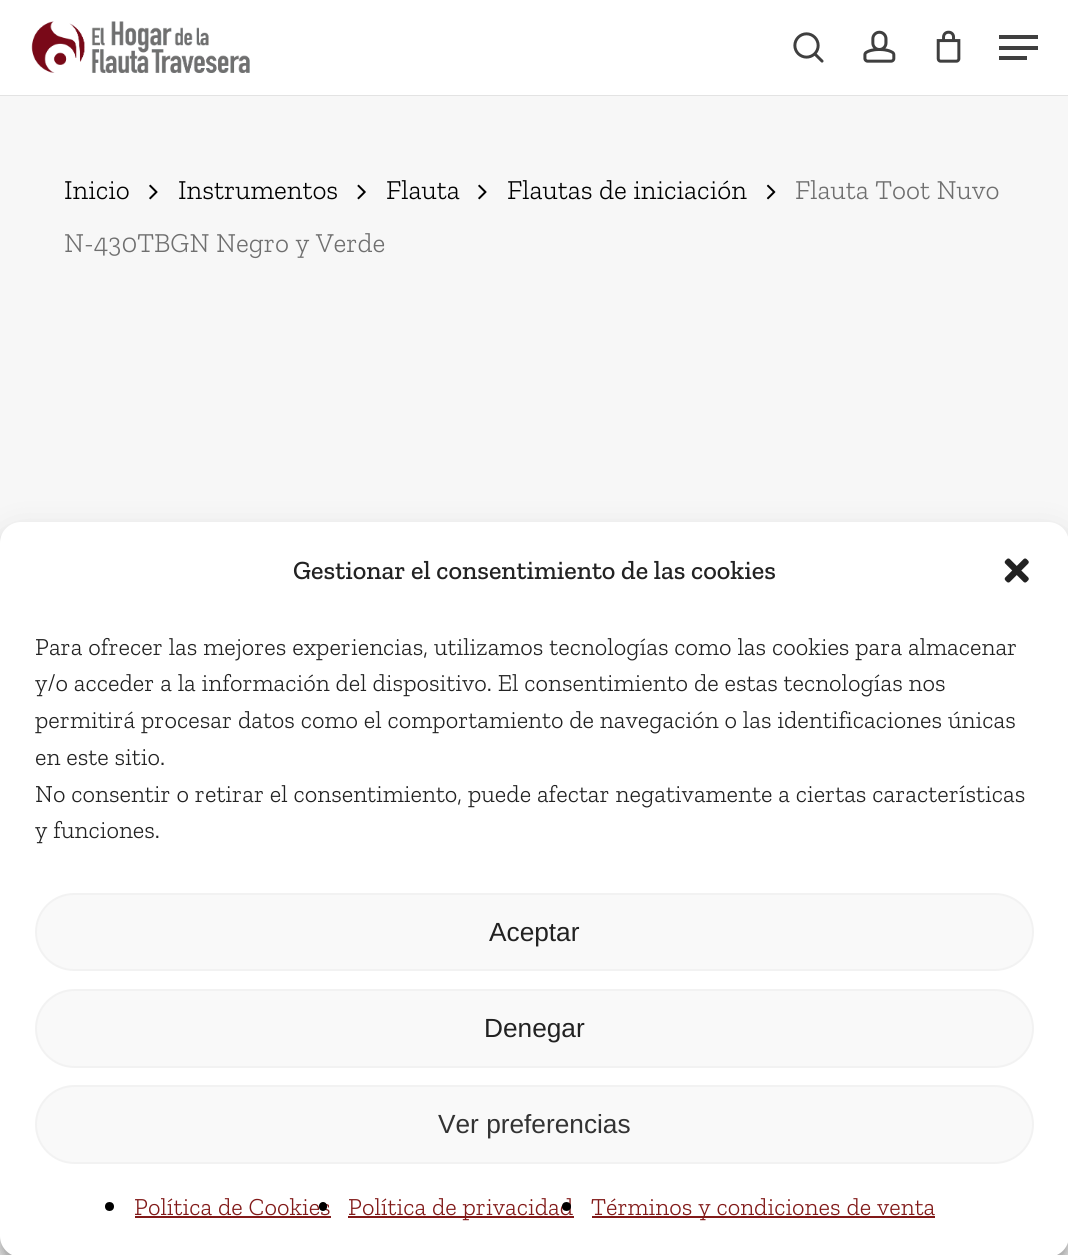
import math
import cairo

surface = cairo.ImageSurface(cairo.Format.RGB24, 1068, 1255)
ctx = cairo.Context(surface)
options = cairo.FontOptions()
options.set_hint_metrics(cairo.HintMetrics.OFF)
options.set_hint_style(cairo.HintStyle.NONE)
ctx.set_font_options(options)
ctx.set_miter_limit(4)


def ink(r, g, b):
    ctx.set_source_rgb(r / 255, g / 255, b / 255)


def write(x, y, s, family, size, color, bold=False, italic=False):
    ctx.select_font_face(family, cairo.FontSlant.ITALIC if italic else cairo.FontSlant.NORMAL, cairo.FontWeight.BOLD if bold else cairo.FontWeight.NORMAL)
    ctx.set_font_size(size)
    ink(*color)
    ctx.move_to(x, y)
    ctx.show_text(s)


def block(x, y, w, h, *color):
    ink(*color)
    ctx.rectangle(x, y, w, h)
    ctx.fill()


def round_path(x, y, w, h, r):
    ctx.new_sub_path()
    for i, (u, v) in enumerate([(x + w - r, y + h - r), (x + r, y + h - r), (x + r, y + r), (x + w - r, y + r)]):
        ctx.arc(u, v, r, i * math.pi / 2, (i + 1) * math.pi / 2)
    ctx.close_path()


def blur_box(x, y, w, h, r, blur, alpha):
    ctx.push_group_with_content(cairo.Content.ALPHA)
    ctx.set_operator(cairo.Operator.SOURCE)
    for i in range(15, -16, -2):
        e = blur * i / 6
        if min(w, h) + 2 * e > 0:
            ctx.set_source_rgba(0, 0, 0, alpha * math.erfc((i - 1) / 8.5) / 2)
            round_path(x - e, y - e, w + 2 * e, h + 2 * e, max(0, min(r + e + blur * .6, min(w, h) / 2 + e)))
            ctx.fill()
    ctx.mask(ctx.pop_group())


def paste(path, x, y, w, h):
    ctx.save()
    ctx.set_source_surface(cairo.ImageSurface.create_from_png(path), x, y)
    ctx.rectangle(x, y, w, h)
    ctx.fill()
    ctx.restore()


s1 = dict(family="Zilla Slab Light", size=27.4, color=(0, 0, 0))
s2 = dict(family="Zilla Slab Light", size=27.4, color=(111, 111, 111))
s3 = dict(family="Zilla Slab Medium", size=26.25, color=(34, 34, 34))
s4 = dict(family="Zilla Slab Light", size=24.5, color=(34, 34, 34))
s5 = dict(family="Liberation Sans", size=26.25, color=(34, 34, 34))
s6 = dict(family="Liberation Sans", size=26.25, color=(51, 51, 51))
s7 = dict(family="Zilla Slab Light", size=24.5, color=(129, 25, 24))

ink(247, 247, 247)
ctx.paint()
block(0, 95, 1068, 1, 227, 227, 227)
block(0, 0, 1068, 95, 255, 255, 255)
paste("pic1.png", 31, 21, 219, 52)
paste("pic2.png", 793, 32, 31, 31)
paste("pic3.png", 863, 30, 33, 33)
paste("pic4.png", 936, 30, 25, 33)
block(999, 35, 39, 4, 63, 63, 63)
block(999, 56, 28, 4, 63, 63, 63)
block(999, 46, 39, 4, 63, 63, 63)
write(64, 199, "Inicio", **s1)
paste("pic5.png", 149, 184, 9, 16)
write(178, 199, "Instrumentos", **s1)
paste("pic6.png", 357, 184, 9, 16)
write(386, 199, "Flauta", **s1)
paste("pic5.png", 478, 184, 9, 16)
write(507, 199, "Flautas de iniciación", **s1)
paste("pic7.png", 766, 184, 10, 16)
write(795, 199, "Flauta Toot Nuvo", **s2)
write(64, 252, "N-430TBGN Negro y Verde", **s2)
ink(0, 0, 0)
blur_box(0, 532, 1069, 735, 21, 5, 0.23)
blur_box(0, 539, 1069, 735, 21, 17.5, 0.19)
ink(255, 255, 255)
round_path(0, 522, 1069, 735, 21)
ctx.fill()
write(293, 579, "Gestionar el consentimiento de las cookies", **s3)
paste("pic8.png", 1004, 558, 25, 25)
write(35, 655, "Para ofrecer las mejores experiencias, utilizamos tecnologías como las cookies para almacenar", **s4)
write(35, 691, "y/o acceder a la información del dispositivo. El consentimiento de estas tecnologías nos", **s4)
write(35, 728, "permitirá procesar datos como el comportamiento de navegación o las identificaciones únicas", **s4)
write(35, 765, "en este sitio.", **s4)
write(35, 802, "No consentir o retirar el consentimiento, puede afectar negativamente a ciertas características", **s4)
write(35, 838, "y funciones.", **s4)
ink(249, 249, 249)
round_path(36, 894, 997, 76, 38)
ctx.fill_preserve()
ink(242, 242, 242)
ctx.stroke()
write(489, 941, "Aceptar", **s5)
ink(249, 249, 249)
round_path(36, 990, 997, 77, 38.5)
ctx.fill_preserve()
ink(242, 242, 242)
ctx.stroke()
write(484, 1037, "Denegar", **s5)
ink(249, 249, 249)
round_path(36, 1086, 997, 77, 38.5)
ctx.fill_preserve()
ink(242, 242, 242)
ctx.stroke()
write(438, 1133, "Ver preferencias", **s6)
ink(0, 0, 0)
ctx.new_path()
ctx.arc(109.5, 1206.5, 4.5, 0, 2 * math.pi)
ctx.fill()
write(134, 1215, "Política de Cookies", **s7)
block(135, 1216, 196, 2, 129, 25, 24)
ink(0, 0, 0)
round_path(319, 1202, 8, 9, 4)
ctx.fill()
block(348, 1216, 226, 2, 129, 25, 24)
write(348, 1215, "Política de privacidad", **s7)
ink(0, 0, 0)
ctx.new_path()
ctx.arc(566.5, 1206.5, 4.5, 0, 2 * math.pi)
ctx.fill()
block(592, 1216, 343, 2, 129, 25, 24)
write(591, 1215, "Términos y condiciones de venta", **s7)
surface.write_to_png("screenshot.png")
